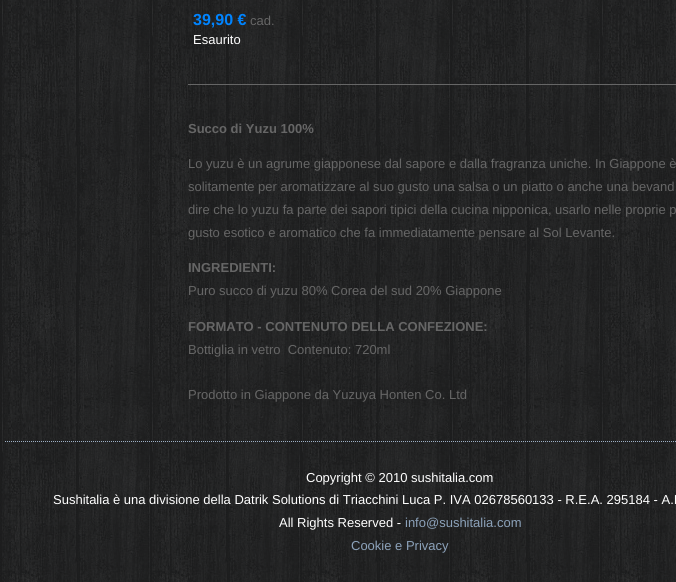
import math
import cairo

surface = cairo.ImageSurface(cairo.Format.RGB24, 676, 582)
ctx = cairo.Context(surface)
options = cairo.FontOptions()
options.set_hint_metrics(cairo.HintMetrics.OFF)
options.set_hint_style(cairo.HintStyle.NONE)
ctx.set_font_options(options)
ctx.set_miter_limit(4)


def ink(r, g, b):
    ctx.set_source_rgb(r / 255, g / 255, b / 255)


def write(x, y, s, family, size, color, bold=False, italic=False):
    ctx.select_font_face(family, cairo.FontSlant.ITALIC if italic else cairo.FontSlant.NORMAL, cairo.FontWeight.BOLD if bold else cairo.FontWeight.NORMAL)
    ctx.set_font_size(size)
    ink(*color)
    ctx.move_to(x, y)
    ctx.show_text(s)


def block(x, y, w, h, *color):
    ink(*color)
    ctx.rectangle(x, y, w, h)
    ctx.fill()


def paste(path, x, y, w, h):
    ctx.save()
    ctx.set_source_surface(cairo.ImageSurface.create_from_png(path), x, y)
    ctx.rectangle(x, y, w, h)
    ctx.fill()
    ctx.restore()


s1 = dict(family="Liberation Sans", size=16, color=(0, 132, 255), bold=True)
s2 = dict(family="Liberation Sans", size=13, color=(102, 102, 102))
s3 = dict(family="Liberation Sans", size=13, color=(255, 255, 255))
s4 = dict(family="Liberation Sans", size=13, color=(102, 102, 102), bold=True)
s5 = dict(family="Liberation Sans", size=13, color=(140, 162, 186))

ink(255, 255, 255)
ctx.paint()
paste("pic1.png", 0, 0, 676, 582)
write(193, 25, "39,90 €", **s1)
write(250, 25, "cad.", **s2)
write(193, 44, "Esaurito", **s3)
block(188, 84, 488, 1, 102, 102, 102)
write(188, 133, "Succo di Yuzu 100%", **s4)
write(188, 168, "Lo yuzu è un agrume giapponese dal sapore e dalla fragranza uniche. In Giappone è", **s2)
write(188, 191, "solitamente per aromatizzare al suo gusto una salsa o un piatto o anche una bevand", **s2)
write(188, 214, "dire che lo yuzu fa parte dei sapori tipici della cucina nipponica, usarlo nelle proprie p", **s2)
write(188, 237, "gusto esotico e aromatico che fa immediatamente pensare al Sol Levante.", **s2)
write(188, 272, "INGREDIENTI:", **s4)
write(188, 295, "Puro succo di yuzu 80% Corea del sud 20% Giappone", **s2)
write(188, 331, "FORMATO - CONTENUTO DELLA CONFEZIONE:", **s4)
write(188, 354, "Bottiglia in vetro  Contenuto: 720ml", **s2)
write(188, 399, "Prodotto in Giappone da Yuzuya Honten Co. Ltd", **s2)
ctx.new_path()
ctx.move_to(5, 441.5)
ctx.line_to(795, 441.5)
ink(156, 175, 196)
ctx.set_line_width(1)
ctx.set_dash([1, 1])
ctx.stroke()
write(306, 482, "Copyright © 2010 sushitalia.com", **s3)
write(53, 504, "Sushitalia è una divisione della Datrik Solutions di Triacchini Luca P. IVA 02678560133 - R.E.A. 295184 - A.I", **s3)
write(279, 527, "All Rights Reserved -", **s3)
write(405, 527, "info@sushitalia.com", **s5)
write(351, 550, "Cookie e Privacy", **s5)
surface.write_to_png("screenshot.png")
